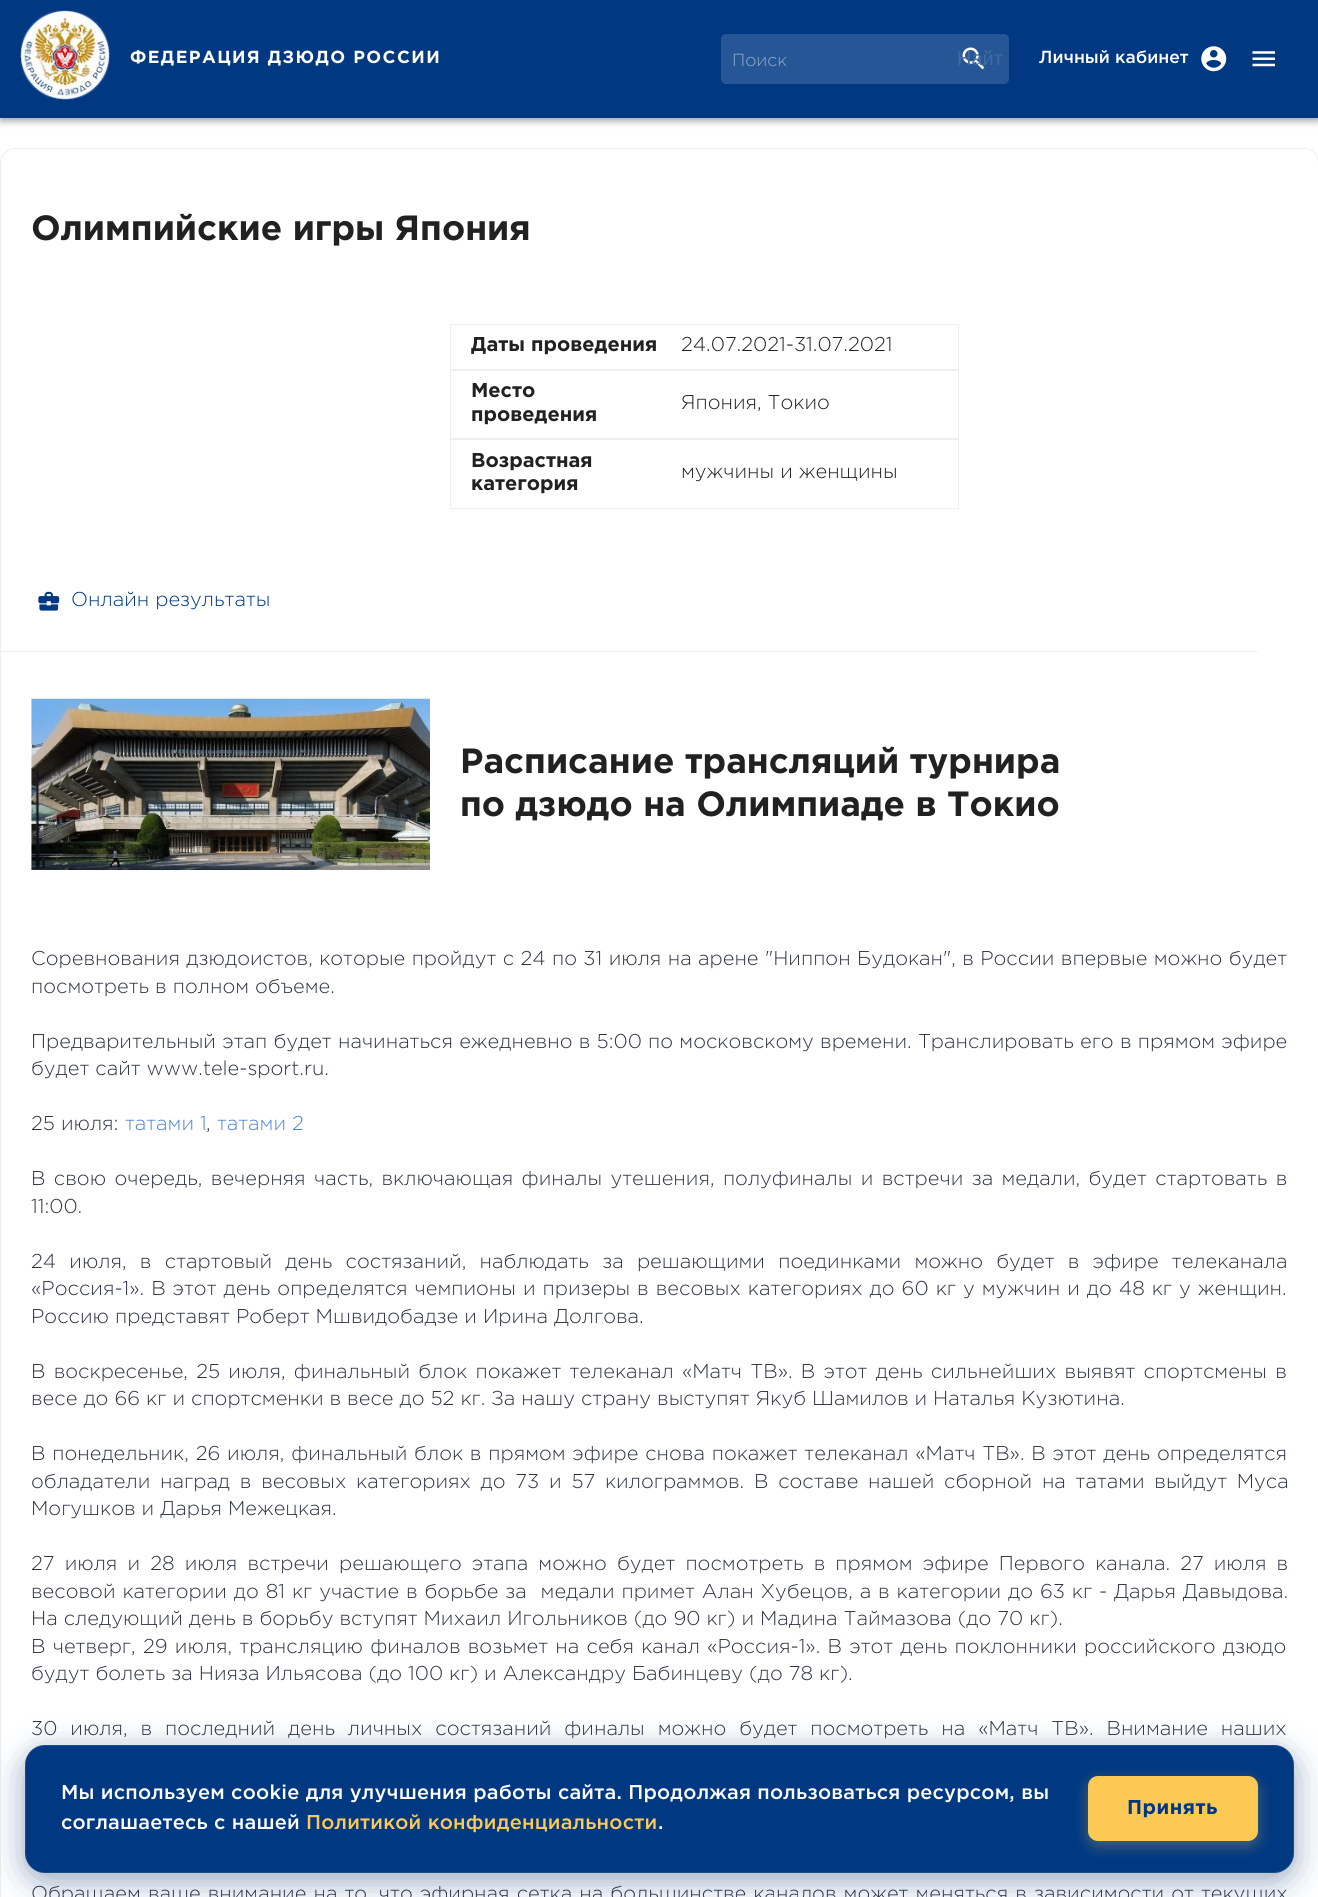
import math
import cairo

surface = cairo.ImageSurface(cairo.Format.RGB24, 1318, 1897)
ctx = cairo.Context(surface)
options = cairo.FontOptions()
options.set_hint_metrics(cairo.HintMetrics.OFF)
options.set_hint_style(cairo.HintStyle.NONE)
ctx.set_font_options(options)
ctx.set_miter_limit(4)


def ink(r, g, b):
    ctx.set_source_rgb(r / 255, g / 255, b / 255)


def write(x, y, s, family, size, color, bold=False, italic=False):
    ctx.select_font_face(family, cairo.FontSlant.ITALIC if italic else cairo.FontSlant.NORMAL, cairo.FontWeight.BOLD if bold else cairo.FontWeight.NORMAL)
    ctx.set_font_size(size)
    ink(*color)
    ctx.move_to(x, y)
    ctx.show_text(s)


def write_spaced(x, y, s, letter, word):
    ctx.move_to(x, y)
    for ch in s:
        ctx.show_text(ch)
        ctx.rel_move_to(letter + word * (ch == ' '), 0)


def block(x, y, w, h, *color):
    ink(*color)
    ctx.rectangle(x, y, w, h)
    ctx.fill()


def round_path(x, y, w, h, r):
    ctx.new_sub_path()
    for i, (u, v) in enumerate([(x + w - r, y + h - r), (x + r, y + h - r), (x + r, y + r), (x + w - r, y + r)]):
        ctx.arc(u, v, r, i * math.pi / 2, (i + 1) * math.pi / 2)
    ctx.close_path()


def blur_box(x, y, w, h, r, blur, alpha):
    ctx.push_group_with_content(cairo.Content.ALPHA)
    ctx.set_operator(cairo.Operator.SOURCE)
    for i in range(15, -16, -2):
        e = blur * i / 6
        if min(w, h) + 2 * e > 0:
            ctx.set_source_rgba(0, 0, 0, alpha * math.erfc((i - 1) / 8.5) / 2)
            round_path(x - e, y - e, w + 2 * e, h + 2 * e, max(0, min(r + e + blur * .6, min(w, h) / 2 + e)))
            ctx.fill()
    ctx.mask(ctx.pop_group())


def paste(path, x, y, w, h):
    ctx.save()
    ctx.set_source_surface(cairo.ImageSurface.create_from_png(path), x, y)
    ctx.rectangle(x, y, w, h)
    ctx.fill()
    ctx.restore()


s1 = dict(family="Gotham Light", size=17.5, color=(147, 171, 202))
s2 = dict(family="Liberation Sans", size=20, color=(65, 107, 162))
s3 = dict(family="Gotham Medium", size=17.5, color=(255, 255, 255))
s4 = dict(family="Gotham", size=35, color=(33, 33, 33), bold=True)
s5 = dict(family="Gotham", size=20, color=(33, 33, 33), bold=True)
s6 = dict(family="Gotham Light", size=20, color=(33, 33, 33))
s7 = dict(family="Gotham Light", size=20, color=(0, 56, 130))
s8 = dict(family="Gotham Light", size=20, color=(47, 52, 68))
s9 = dict(family="Gotham Light", size=20, color=(79, 133, 212))

ink(255, 255, 255)
ctx.paint()
ink(0, 0, 0)
blur_box(0, 1, 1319, 118, 0, 6, 0.12)
blur_box(0, 5, 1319, 118, 0, 3, 0.14)
blur_box(1, 4, 1317, 115, 0, 2.5, 0.2)
block(0, 0, 1318, 118, 0, 56, 130)
paste("pic1.png", 20, 10, 90, 90)
ctx.select_font_face("Gotham", cairo.FontSlant.NORMAL, cairo.FontWeight.BOLD)
ctx.set_font_size(17.5)
ink(255, 255, 255)
write_spaced(130, 63, "ФЕДЕРАЦИЯ ДЗЮДО РОССИИ", 1.4, 0)
ink(38, 86, 149)
round_path(721, 34, 288, 50, 5)
ctx.fill()
paste("pic2.png", 962, 47, 23, 23)
write(732, 66, "Поиск", **s1)
write(957, 65, "Найт", **s2)
write(1039, 63, "Личный кабинет", **s3)
paste("pic3.png", 1201, 46, 26, 26)
paste("pic4.png", 1252, 51, 23, 16)
round_path(0.5, 148.5, 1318, 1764, 14.5)
ink(238, 238, 238)
ctx.set_line_width(1)
ctx.stroke()
write(31, 240, "Олимпийские игры Япония", **s4)
block(1, 651, 1257, 1, 238, 238, 238)
ctx.rectangle(450.5, 324.5, 508, 45)
ctx.stroke()
write(471, 351, "Даты проведения", **s5)
write(681, 351, "24.07.2021-31.07.2021", **s6)
ctx.rectangle(450.5, 370.5, 508, 68)
ink(238, 238, 238)
ctx.stroke()
write(471, 397, "Место", **s5)
write(471, 421, "проведения", **s5)
write(681, 409, "Япония, Токио", **s6)
ctx.rectangle(450.5, 439.5, 508, 69)
ink(238, 238, 238)
ctx.stroke()
write(471, 467, "Возрастная", **s5)
write(471, 490, "категория", **s5)
write(681, 478, "мужчины и женщины", **s6)
paste("pic5.png", 38, 591, 22, 20)
write(71, 606, "Онлайн результаты", **s7)
paste("pic6.png", 31, 698, 399, 172)
write(460, 773, "Расписание трансляций турнира", **s4)
write(460, 816, "по дзюдо на Олимпиаде в Токио", **s4)
ctx.select_font_face("Gotham Light")
ctx.set_font_size(20)
ink(47, 52, 68)
write_spaced(31, 965, "Соревнования дзюдоистов, которые пройдут с 24 по 31 июля на арене \"Ниппон Будокан\", в России впервые можно будет", 0, 0.4)
write(31, 993, "посмотреть в полном объеме.", **s8)
write_spaced(31, 1048, "Предварительный этап будет начинаться ежедневно в 5:00 по московскому времени. Транслировать его в прямом эфире", 0, 0.25)
write(31, 1075, "будет сайт www.tele-sport.ru.", **s8)
write(31, 1130, "25 июля:", **s8)
write(125, 1130, "татами 1", **s9)
write(206, 1130, ",", **s8)
write(217, 1130, "татами 2", **s9)
ink(47, 52, 68)
write_spaced(31, 1185, "В свою очередь, вечерняя часть, включающая финалы утешения, полуфиналы и встречи за медали, будет стартовать в", 0, 2.4)
write(31, 1213, "11:00.", **s8)
write_spaced(31, 1268, "24 июля, в стартовый день состязаний, наблюдать за решающими поединками можно будет в эфире телеканала", 0, 7.25)
write_spaced(31, 1295, "«Россия-1». В этот день определятся чемпионы и призеры в весовых категориях до 60 кг у мужчин и до 48 кг у женщин.", 0, 1)
write(31, 1323, "Россию представят Роберт Мшвидобадзе и Ирина Долгова.", **s8)
write_spaced(31, 1378, "В воскресенье, 25 июля, финальный блок покажет телеканал «Матч ТВ». В этот день сильнейших выявят спортсмены в", 0, 2.25)
write(31, 1405, "весе до 66 кг и спортсменки в весе до 52 кг. За нашу страну выступят Якуб Шамилов и Наталья Кузютина.", **s8)
write_spaced(31, 1460, "В понедельник, 26 июля, финальный блок в прямом эфире снова покажет телеканал «Матч ТВ». В этот день определятся", 0, 0.8)
write_spaced(31, 1488, "обладатели наград в весовых категориях до 73 и 57 килограммов. В составе нашей сборной на татами выйдут Муса", 0, 3.75)
write(31, 1515, "Могушков и Дарья Межецкая.", **s8)
write_spaced(31, 1570, "27 июля и 28 июля встречи решающего этапа можно будет посмотреть в прямом эфире Первого канала. 27 июля в", 0, 4.1)
write_spaced(31, 1598, "весовой категории до 81 кг участие в борьбе за  медали примет Алан Хубецов, а в категории до 63 кг - Дарья Давыдова.", 0, 0.9)
write(31, 1625, "На следующий день в борьбу вступят Михаил Игольников (до 90 кг) и Мадина Таймазова (до 70 кг).", **s8)
write_spaced(31, 1653, "В четверг, 29 июля, трансляцию финалов возьмет на себя канал «Россия-1». В этот день поклонники российского дзюдо", 0, 1.25)
write(31, 1680, "будут болеть за Нияза Ильясова (до 100 кг) и Александру Бабинцеву (до 78 кг).", **s8)
write_spaced(31, 1735, "30 июля, в последний день личных состязаний финалы можно будет посмотреть на «Матч ТВ». Внимание наших", 0, 6.9)
write_spaced(31, 1900, "Обращаем ваше внимание на то, что эфирная сетка на большинстве каналов может меняться в зависимости от текущих", 0, 1.1)
ink(0, 0, 0)
blur_box(25, 1750, 1269, 128, 20, 10, 0.15)
ink(0, 56, 130)
blur_box(25, 1755, 1269, 128, 20, 20, 0.3)
ink(0, 56, 130)
round_path(25, 1745, 1269, 128, 20)
ctx.fill()
round_path(25.5, 1745.5, 1268, 127, 19.5)
ctx.set_source_rgba(1, 1, 1, 0.1)
ctx.stroke()
ctx.select_font_face("Gotham Medium")
ink(255, 255, 255)
write_spaced(61, 1799, "Мы используем cookie для улучшения работы сайта. Продолжая пользоваться ресурсом, вы", 0.2, 0)
write_spaced(61, 1829, "соглашаетесь с нашей", 0.2, 0)
ink(252, 201, 84)
write_spaced(306, 1829, "Политикой конфиденциальности", 0.2, 0)
ink(255, 255, 255)
write_spaced(658, 1829, ".", 0.2, 0)
ink(252, 201, 84)
blur_box(1088, 1781, 170, 65, 10, 7.5, 0.3)
ink(252, 201, 84)
round_path(1088, 1776, 170, 65, 10)
ctx.fill()
ctx.select_font_face("Gotham", cairo.FontSlant.NORMAL, cairo.FontWeight.BOLD)
ink(0, 56, 130)
write_spaced(1127, 1814, "Принять", 0.5, 0)
surface.write_to_png("screenshot.png")
